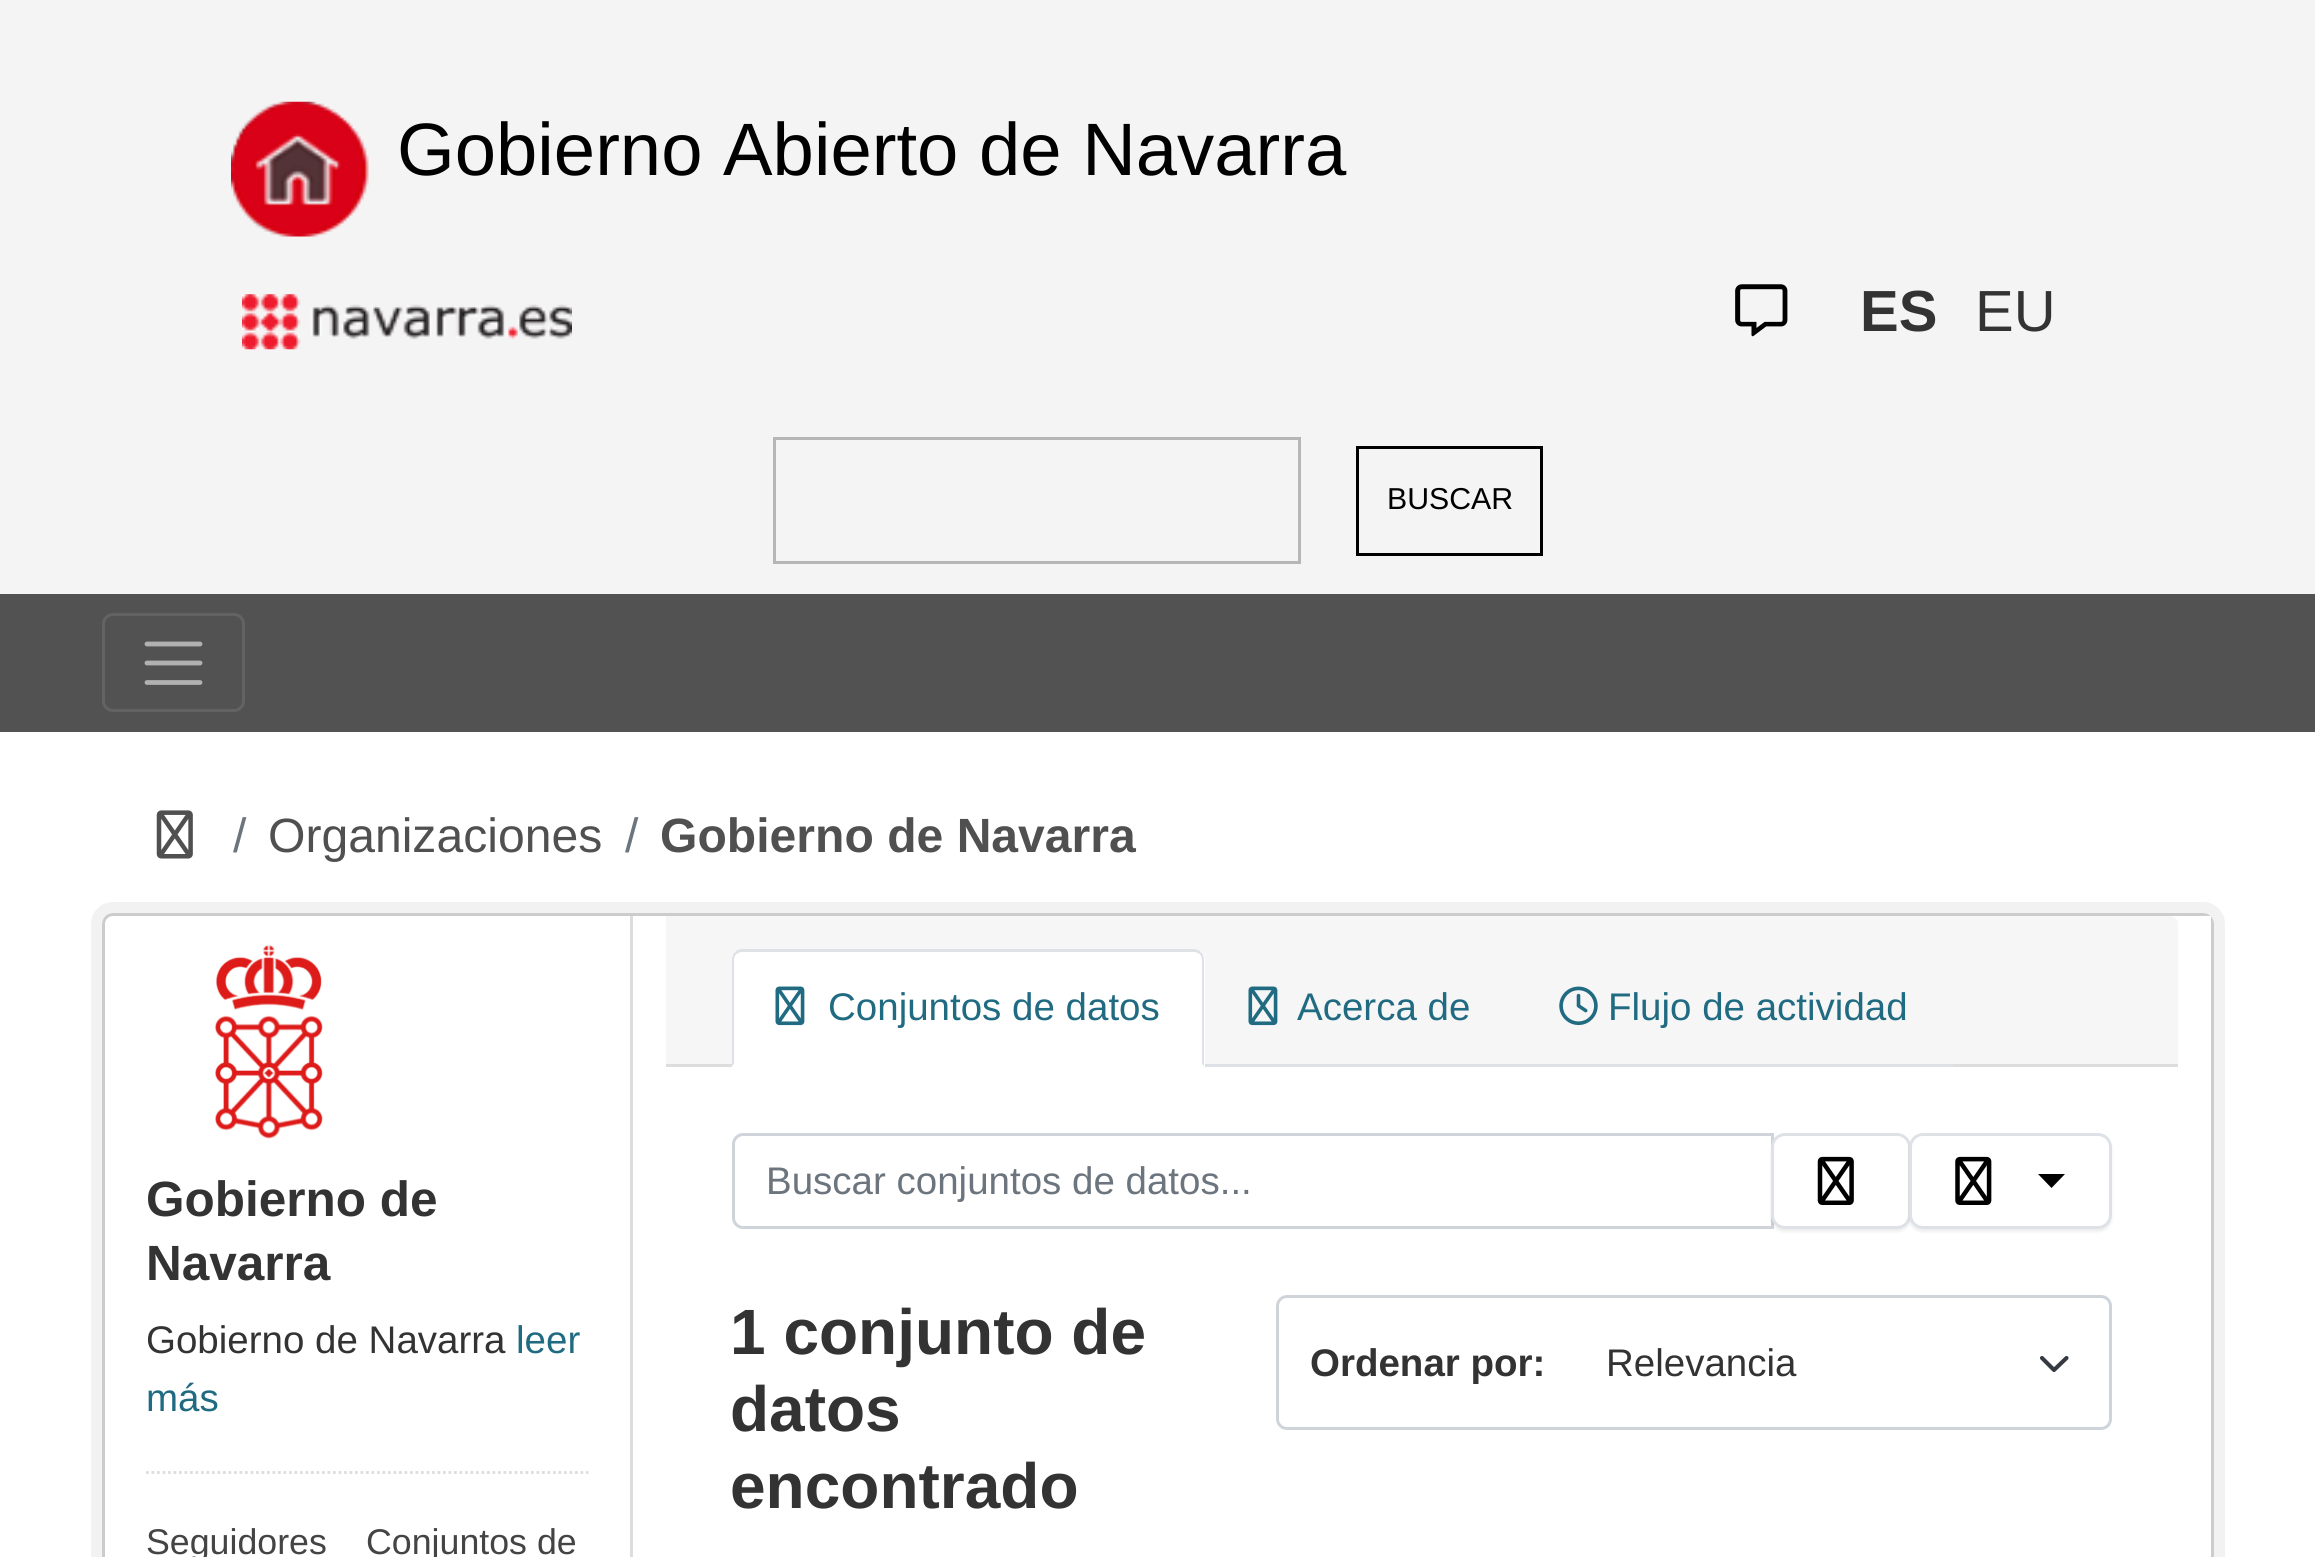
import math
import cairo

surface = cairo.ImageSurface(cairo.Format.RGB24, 2315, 1557)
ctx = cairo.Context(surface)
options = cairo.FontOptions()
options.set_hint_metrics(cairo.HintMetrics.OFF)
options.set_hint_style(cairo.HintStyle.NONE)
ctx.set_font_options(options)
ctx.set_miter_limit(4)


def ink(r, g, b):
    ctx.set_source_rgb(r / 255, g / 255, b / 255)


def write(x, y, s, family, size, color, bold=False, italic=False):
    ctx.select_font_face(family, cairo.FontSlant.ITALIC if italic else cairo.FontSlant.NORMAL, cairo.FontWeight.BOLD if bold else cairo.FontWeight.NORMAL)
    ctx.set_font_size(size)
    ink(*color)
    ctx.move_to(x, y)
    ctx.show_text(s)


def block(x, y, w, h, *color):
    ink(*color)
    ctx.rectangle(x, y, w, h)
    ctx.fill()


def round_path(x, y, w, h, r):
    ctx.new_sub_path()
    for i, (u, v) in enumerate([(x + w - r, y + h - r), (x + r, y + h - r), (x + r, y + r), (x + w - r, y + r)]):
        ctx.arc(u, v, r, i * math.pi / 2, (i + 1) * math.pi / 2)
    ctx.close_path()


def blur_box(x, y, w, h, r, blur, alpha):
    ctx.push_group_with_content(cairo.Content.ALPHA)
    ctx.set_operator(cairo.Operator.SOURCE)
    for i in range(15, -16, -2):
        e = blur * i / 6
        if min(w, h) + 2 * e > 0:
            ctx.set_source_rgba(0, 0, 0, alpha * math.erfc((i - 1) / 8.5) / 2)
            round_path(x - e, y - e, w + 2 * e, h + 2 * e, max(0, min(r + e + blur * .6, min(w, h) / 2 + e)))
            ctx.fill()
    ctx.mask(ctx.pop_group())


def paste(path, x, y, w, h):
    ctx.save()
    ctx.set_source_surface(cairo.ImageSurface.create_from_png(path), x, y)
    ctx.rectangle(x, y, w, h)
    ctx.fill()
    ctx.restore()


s1 = dict(family="Liberation Sans", size=74.25, color=(0, 0, 0))
s2 = dict(family="Liberation Sans", size=58, color=(51, 51, 51), bold=True)
s3 = dict(family="Liberation Sans", size=58, color=(51, 51, 51))
s4 = dict(family="Liberation Sans", size=30.25, color=(0, 0, 0))
s5 = dict(family="Liberation Sans", size=48.1, color=(108, 117, 125))
s6 = dict(family="Liberation Sans", size=48.1, color=(80, 80, 80))
s7 = dict(family="Liberation Sans", size=48.1, color=(80, 80, 80), bold=True)
s8 = dict(family="Liberation Sans", size=49.5, color=(51, 51, 51), bold=True)
s9 = dict(family="Liberation Sans", size=38.5, color=(51, 51, 51))
s10 = dict(family="Liberation Sans", size=38.5, color=(32, 107, 130))
s11 = dict(family="Liberation Sans", size=35.75, color=(68, 68, 68))
s12 = dict(family="Liberation Sans", size=38.5, color=(108, 117, 125))
s13 = dict(family="Liberation Sans", size=64, color=(51, 51, 51), bold=True)
s14 = dict(family="Liberation Sans", size=38.5, color=(51, 51, 51), bold=True)

ink(244, 244, 244)
ctx.paint()
paste("pic1.png", 231, 101, 138, 136)
write(397, 175, "Gobierno Abierto de Navarra", **s1)
paste("pic2.png", 242, 294, 330, 56)
paste("pic3.png", 1735, 284, 53, 53)
write(1860, 331, "ES", **s2)
write(1975, 331, "EU", **s3)
ctx.rectangle(774.5, 438.5, 525, 124)
ink(182, 182, 182)
ctx.set_line_width(3)
ctx.stroke()
ctx.rectangle(1357.5, 447.5, 184, 107)
ink(0, 0, 0)
ctx.stroke()
write(1387, 509, "BUSCAR", **s4)
block(0, 594, 2315, 138, 82, 82, 82)
round_path(103.5, 614.5, 140, 96, 9.5)
ink(99, 99, 99)
ctx.stroke()
ctx.new_path()
ctx.move_to(147, 644)
ctx.line_to(200, 644)
ctx.move_to(147, 663)
ctx.line_to(200, 663)
ctx.move_to(147, 682.5)
ctx.line_to(200, 682.5)
ink(177, 177, 177)
ctx.set_line_width(4.8)
ctx.set_line_cap(cairo.LineCap.ROUND)
ctx.stroke()
block(0, 732, 2315, 825, 255, 255, 255)
paste("pic4.png", 156, 810, 37, 49)
write(233, 852, "/", **s5)
write(268, 852, "Organizaciones", **s6)
write(625, 852, "/", **s5)
write(660, 852, "Gobierno de Navarra", **s7)
round_path(96.5, 907.5, 2123, 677, 16.5)
ink(242, 242, 242)
ctx.set_line_width(11)
ctx.set_line_cap(cairo.LineCap.BUTT)
ctx.stroke()
ink(255, 255, 255)
round_path(103.5, 914.5, 2109, 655, 9.5)
ctx.fill_preserve()
ink(204, 204, 204)
ctx.set_line_width(3)
ctx.stroke()
paste("pic5.png", 215, 945, 108, 194)
write(146, 1216, "Gobierno de", **s8)
write(146, 1280, "Navarra", **s8)
write(146, 1353, "Gobierno de Navarra", **s9)
write(516, 1353, "leer", **s10)
write(146, 1411, "más", **s10)
ctx.new_path()
ctx.move_to(146, 1472.5)
ctx.line_to(588.5, 1472.5)
ink(221, 221, 221)
ctx.set_line_width(2.8)
ctx.set_dash([2.75, 2.75])
ctx.stroke()
write(146, 1554, "Seguidores", **s11)
write(366, 1554, "Conjuntos de", **s11)
block(630, 916, 3, 641, 221, 221, 221)
ctx.set_source_rgba(1, 1, 1, 0.95)
ctx.rectangle(2204, 916, 7, 7)
ctx.fill()
ink(246, 246, 246)
ctx.new_path()
ctx.move_to(666, 916)
ctx.line_to(2170, 916)
ctx.curve_to(2174.5, 916, 2178, 919.5, 2178, 924)
ctx.line_to(2178, 1067)
ctx.line_to(666, 1067)
ctx.close_path()
ctx.fill()
block(666, 1064, 1512, 3, 221, 221, 221)
block(1205, 1064, 748, 3, 222, 226, 230)
ink(255, 255, 255)
ctx.new_path()
ctx.move_to(743, 949)
ctx.line_to(1194, 949)
ctx.curve_to(1200, 949, 1205, 954, 1205, 960)
ctx.line_to(1205, 1067)
ctx.line_to(732, 1067)
ctx.line_to(732, 960)
ctx.curve_to(732, 954, 737, 949, 743, 949)
ctx.close_path()
ctx.fill()
ink(222, 226, 230)
ctx.new_path()
ctx.move_to(742, 949)
ctx.curve_to(739, 949, 737, 950, 735, 952)
ctx.line_to(737, 954)
ctx.curve_to(738, 953, 740, 952, 742, 952)
ctx.line_to(1194, 952)
ctx.curve_to(1196, 952, 1198, 953, 1199, 954)
ctx.line_to(1201, 952)
ctx.curve_to(1199, 950, 1197, 949, 1194, 949)
ctx.close_path()
ctx.fill()
ctx.new_path()
ctx.move_to(1204, 1066)
ctx.line_to(1204, 960)
ctx.curve_to(1204, 957, 1203, 954, 1201, 952)
ctx.line_to(1199, 954)
ctx.curve_to(1201, 955, 1202, 957, 1202, 960)
ctx.line_to(1202, 1064)
ctx.close_path()
ctx.fill()
ctx.new_path()
ctx.move_to(735, 952)
ctx.curve_to(733, 954, 732, 957, 732, 960)
ctx.line_to(732, 1066)
ctx.line_to(734, 1064)
ctx.line_to(734, 960)
ctx.curve_to(734, 957, 735, 955, 737, 954)
ctx.close_path()
ctx.fill()
paste("pic6.png", 775, 986, 30, 40)
write(828, 1020, "Conjuntos de datos", **s10)
paste("pic7.png", 1248, 986, 30, 40)
write(1297, 1020, "Acerca de", **s10)
paste("pic8.png", 1559, 986, 39, 40)
write(1608, 1020, "Flujo de actividad", **s10)
ctx.new_path()
ctx.move_to(743, 1134.5)
ctx.line_to(1772.5, 1134.5)
ctx.line_to(1772.5, 1227.5)
ctx.line_to(743, 1227.5)
ctx.curve_to(738, 1227.5, 733.5, 1223, 733.5, 1218)
ctx.line_to(733.5, 1144)
ctx.curve_to(733.5, 1139, 738, 1134.5, 743, 1134.5)
ctx.close_path()
ink(206, 212, 218)
ctx.set_line_width(3)
ctx.set_dash([])
ctx.stroke()
write(766, 1194, "Buscar conjuntos de datos...", **s12)
ink(0, 0, 0)
blur_box(1771, 1136, 140, 96, 14, 1.5, 0.07)
ink(255, 255, 255)
round_path(1772.5, 1134.5, 137, 93, 12.5)
ctx.fill_preserve()
ink(222, 226, 230)
ctx.stroke()
paste("pic9.png", 1817, 1156, 37, 49)
ink(0, 0, 0)
blur_box(1909, 1136, 203, 96, 14, 1.5, 0.07)
ink(255, 255, 255)
round_path(1910.5, 1134.5, 200, 93, 12.5)
ctx.fill_preserve()
ink(222, 226, 230)
ctx.stroke()
paste("pic10.png", 1955, 1156, 37, 49)
ink(0, 0, 0)
ctx.new_path()
ctx.move_to(2038, 1174)
ctx.line_to(2065, 1174)
ctx.line_to(2051.5, 1188)
ctx.close_path()
ctx.fill()
write(730, 1354, "1 conjunto de", **s13)
write(730, 1431, "datos", **s13)
write(730, 1508, "encontrado", **s13)
ctx.new_path()
ctx.move_to(2042, 1358)
ctx.line_to(2054, 1370)
ctx.line_to(2066.5, 1358)
ink(52, 58, 64)
ctx.set_line_width(4.1)
ctx.set_line_cap(cairo.LineCap.ROUND)
ctx.set_line_join(cairo.LineJoin.ROUND)
ctx.stroke()
round_path(1277.5, 1296.5, 833, 132, 9.5)
ink(206, 212, 218)
ctx.set_line_width(3)
ctx.set_line_cap(cairo.LineCap.BUTT)
ctx.set_line_join(cairo.LineJoin.MITER)
ctx.stroke()
write(1310, 1376, "Ordenar por:", **s14)
write(1606, 1376, "Relevancia", **s9)
surface.write_to_png("screenshot.png")
